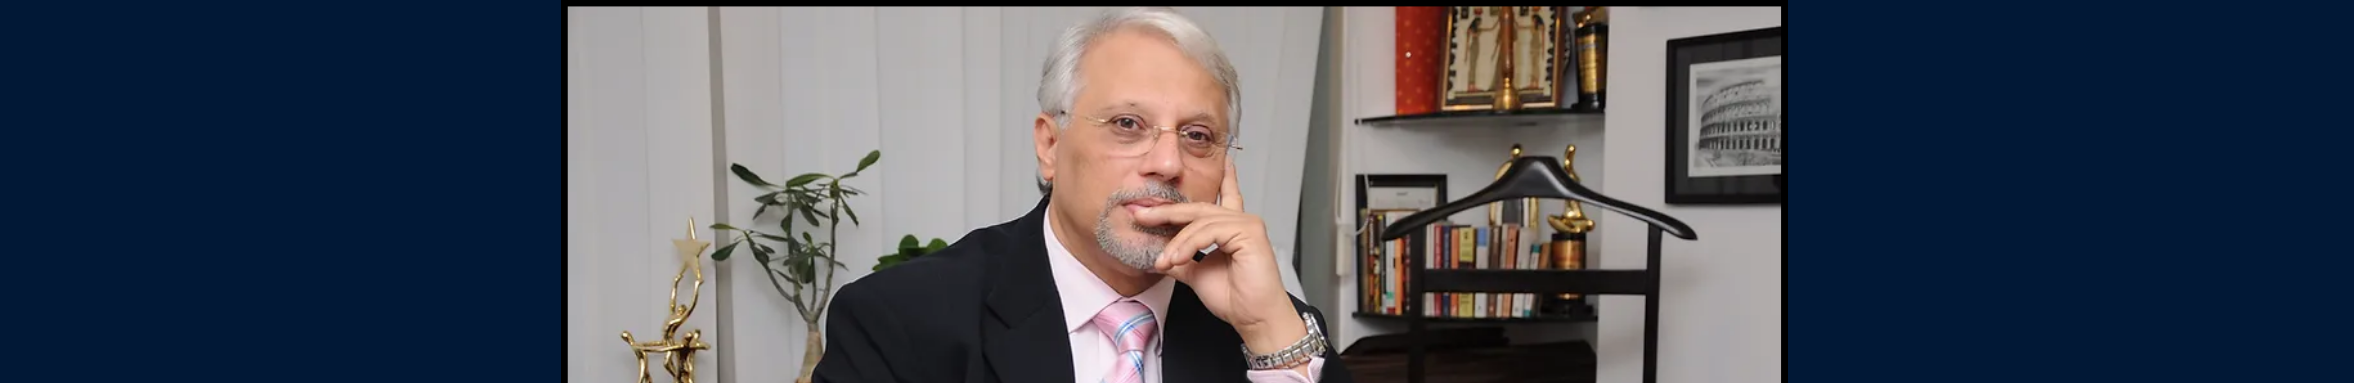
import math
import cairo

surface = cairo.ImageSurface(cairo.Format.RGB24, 2354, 383)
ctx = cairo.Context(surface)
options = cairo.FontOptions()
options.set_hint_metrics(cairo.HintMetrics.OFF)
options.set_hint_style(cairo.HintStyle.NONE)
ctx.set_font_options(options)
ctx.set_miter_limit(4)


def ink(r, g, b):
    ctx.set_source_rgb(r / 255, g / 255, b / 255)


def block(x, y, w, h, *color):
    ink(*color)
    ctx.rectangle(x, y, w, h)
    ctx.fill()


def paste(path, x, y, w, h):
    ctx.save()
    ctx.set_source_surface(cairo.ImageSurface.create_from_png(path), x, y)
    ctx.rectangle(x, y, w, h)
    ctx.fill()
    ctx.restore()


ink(1, 24, 54)
ctx.paint()
block(561, 0, 1227, 383, 0, 0, 0)
paste("pic1.png", 567, 6, 1215, 377)
surface.write_to_png("screenshot.png")
